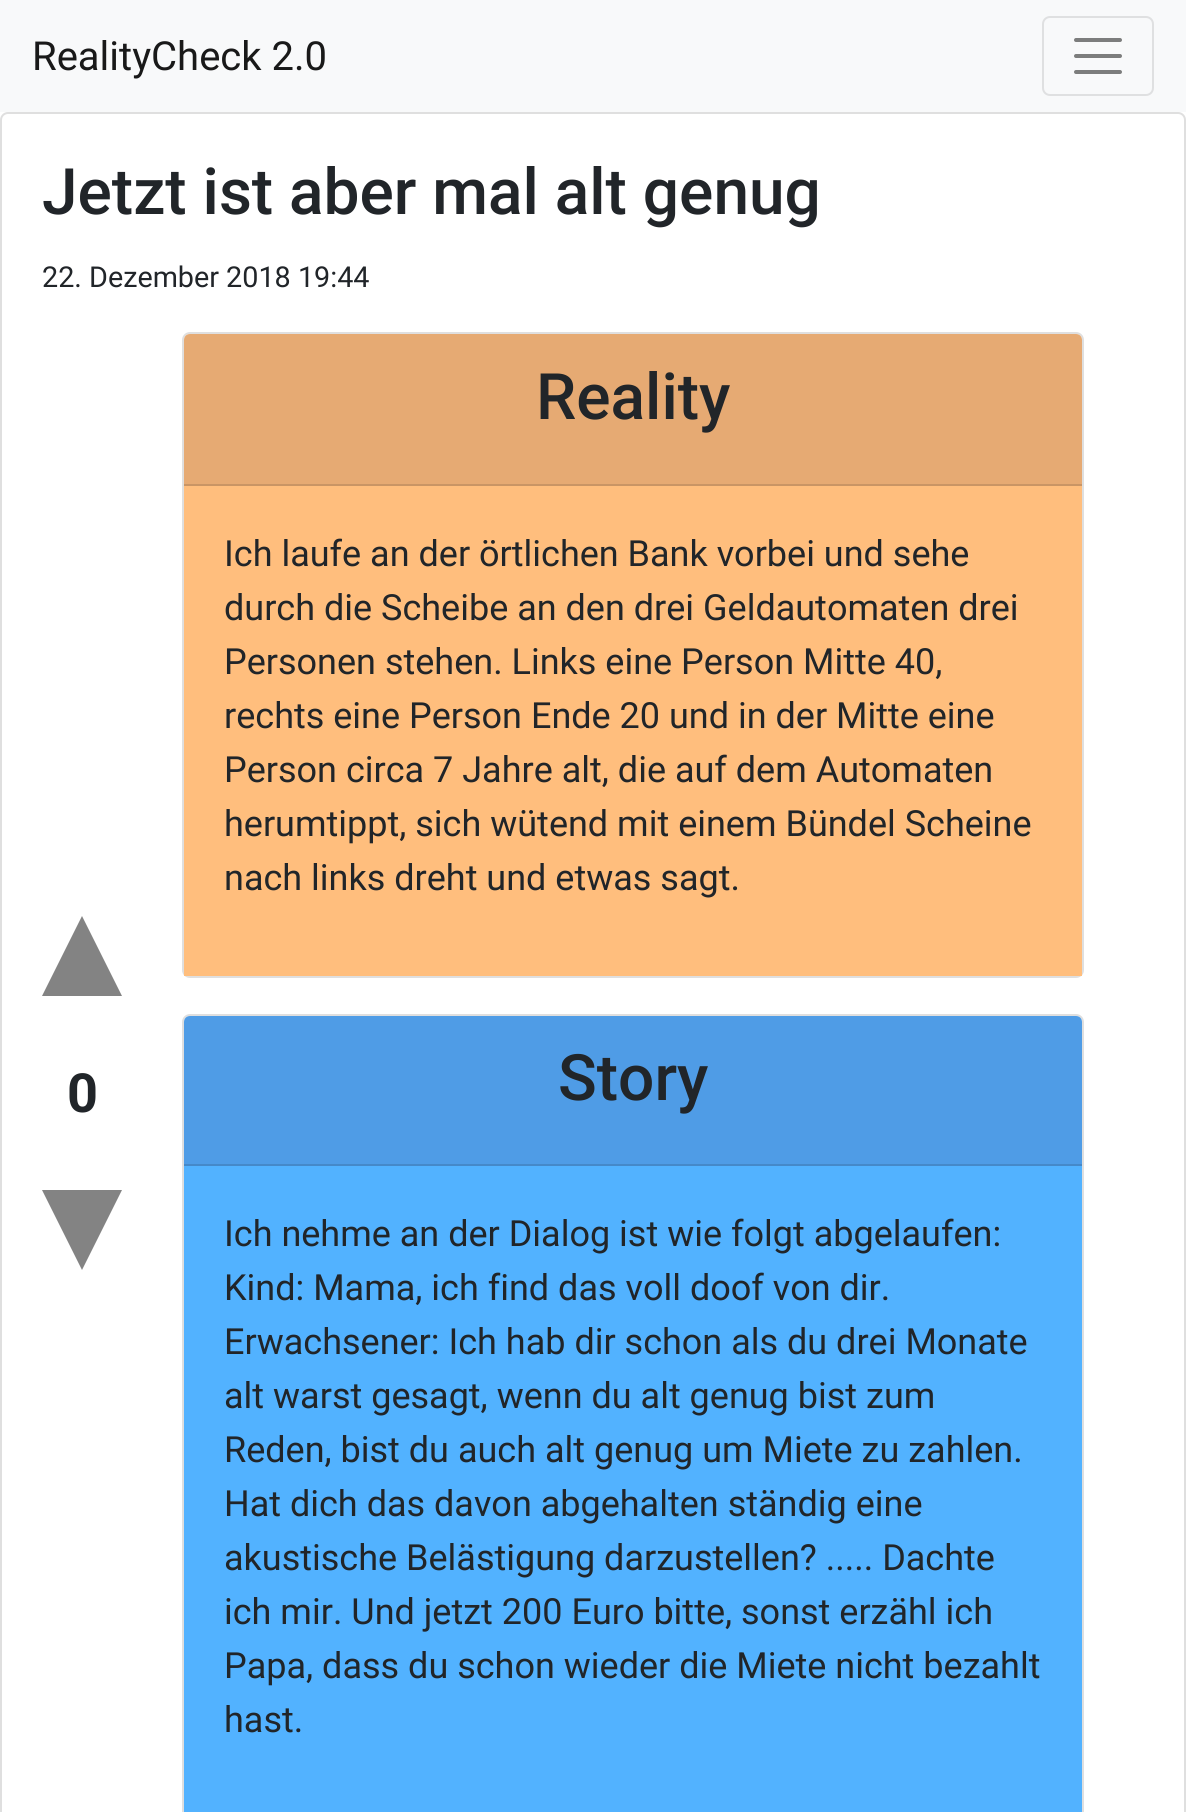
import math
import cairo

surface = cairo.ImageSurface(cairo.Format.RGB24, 1186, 1812)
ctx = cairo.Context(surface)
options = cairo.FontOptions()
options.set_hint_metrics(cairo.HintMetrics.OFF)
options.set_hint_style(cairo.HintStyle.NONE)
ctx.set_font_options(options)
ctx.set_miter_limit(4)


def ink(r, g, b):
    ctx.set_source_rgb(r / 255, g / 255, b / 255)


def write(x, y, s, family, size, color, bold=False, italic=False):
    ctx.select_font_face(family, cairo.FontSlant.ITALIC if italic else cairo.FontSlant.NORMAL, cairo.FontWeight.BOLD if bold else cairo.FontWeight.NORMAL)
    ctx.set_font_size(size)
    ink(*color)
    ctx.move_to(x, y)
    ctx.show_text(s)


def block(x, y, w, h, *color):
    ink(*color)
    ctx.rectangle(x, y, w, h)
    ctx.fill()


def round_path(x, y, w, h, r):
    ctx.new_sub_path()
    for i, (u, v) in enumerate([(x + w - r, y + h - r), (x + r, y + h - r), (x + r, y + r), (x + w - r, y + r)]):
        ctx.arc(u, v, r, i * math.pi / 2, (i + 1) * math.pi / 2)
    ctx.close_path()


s1 = dict(family="Roboto", size=40, color=(25, 25, 25))
s2 = dict(family="Roboto Medium", size=64, color=(33, 37, 41))
s3 = dict(family="Roboto", size=28.75, color=(33, 37, 41))
s4 = dict(family="Roboto", size=54, color=(33, 37, 41), bold=True)
s5 = dict(family="Roboto", size=36, color=(33, 37, 41))

ink(255, 255, 255)
ctx.paint()
block(0, 0, 1186, 112, 248, 249, 250)
write(32, 70, "RealityCheck 2.0", **s1)
round_path(1043, 17, 110, 78, 7)
ink(223, 224, 225)
ctx.stroke()
ctx.new_path()
ctx.move_to(1076, 40)
ctx.line_to(1120, 40)
ctx.move_to(1076, 56)
ctx.line_to(1120, 56)
ctx.move_to(1076, 72)
ctx.line_to(1120, 72)
ink(124, 125, 125)
ctx.set_line_width(4)
ctx.set_line_cap(cairo.LineCap.ROUND)
ctx.stroke()
round_path(1, 113, 1184, 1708, 7)
ink(223, 223, 223)
ctx.set_line_width(2)
ctx.set_line_cap(cairo.LineCap.BUTT)
ctx.stroke()
write(42, 214, "Jetzt ist aber mal alt genug", **s2)
write(42, 287, "22. Dezember 2018 19:44", **s3)
ink(131, 131, 131)
ctx.new_path()
ctx.move_to(42, 996)
ctx.line_to(82, 916)
ctx.line_to(122, 996)
ctx.close_path()
ctx.fill()
write(67, 1112, "0", **s4)
ink(131, 131, 131)
ctx.new_path()
ctx.move_to(42, 1190)
ctx.line_to(82, 1270)
ctx.line_to(122, 1190)
ctx.close_path()
ctx.fill()
round_path(183, 333, 900, 644, 7)
ink(223, 223, 223)
ctx.stroke()
ink(230, 170, 115)
ctx.new_path()
ctx.move_to(190, 334)
ctx.line_to(1076, 334)
ctx.curve_to(1079.5, 334, 1082, 336.5, 1082, 340)
ctx.line_to(1082, 486)
ctx.line_to(184, 486)
ctx.line_to(184, 340)
ctx.curve_to(184, 336.5, 186.5, 334, 190, 334)
ctx.close_path()
ctx.fill()
block(184, 484, 898, 2, 201, 149, 101)
write(536, 419, "Reality", **s2)
block(184, 486, 898, 490, 255, 190, 125)
write(224, 566, "Ich laufe an der örtlichen Bank vorbei und sehe", **s5)
write(224, 620, "durch die Scheibe an den drei Geldautomaten drei", **s5)
write(224, 674, "Personen stehen. Links eine Person Mitte 40,", **s5)
write(224, 728, "rechts eine Person Ende 20 und in der Mitte eine", **s5)
write(224, 782, "Person circa 7 Jahre alt, die auf dem Automaten", **s5)
write(224, 836, "herumtippt, sich wütend mit einem Bündel Scheine", **s5)
write(224, 890, "nach links dreht und etwas sagt.", **s5)
round_path(183, 1015, 900, 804, 7)
ink(223, 223, 223)
ctx.stroke()
ink(79, 156, 230)
ctx.new_path()
ctx.move_to(190, 1016)
ctx.line_to(1076, 1016)
ctx.curve_to(1079.5, 1016, 1082, 1018.5, 1082, 1022)
ctx.line_to(1082, 1166)
ctx.line_to(184, 1166)
ctx.line_to(184, 1022)
ctx.curve_to(184, 1018.5, 186.5, 1016, 190, 1016)
ctx.close_path()
ctx.fill()
block(184, 1164, 898, 2, 69, 137, 201)
write(558, 1100, "Story", **s2)
block(184, 1166, 898, 646, 82, 178, 255)
write(224, 1246, "Ich nehme an der Dialog ist wie folgt abgelaufen:", **s5)
write(224, 1300, "Kind: Mama, ich find das voll doof von dir.", **s5)
write(224, 1354, "Erwachsener: Ich hab dir schon als du drei Monate", **s5)
write(224, 1408, "alt warst gesagt, wenn du alt genug bist zum", **s5)
write(224, 1462, "Reden, bist du auch alt genug um Miete zu zahlen.", **s5)
write(224, 1516, "Hat dich das davon abgehalten ständig eine", **s5)
write(224, 1570, "akustische Belästigung darzustellen? ..... Dachte", **s5)
write(224, 1624, "ich mir. Und jetzt 200 Euro bitte, sonst erzähl ich", **s5)
write(224, 1678, "Papa, dass du schon wieder die Miete nicht bezahlt", **s5)
write(224, 1732, "hast.", **s5)
surface.write_to_png("screenshot.png")
